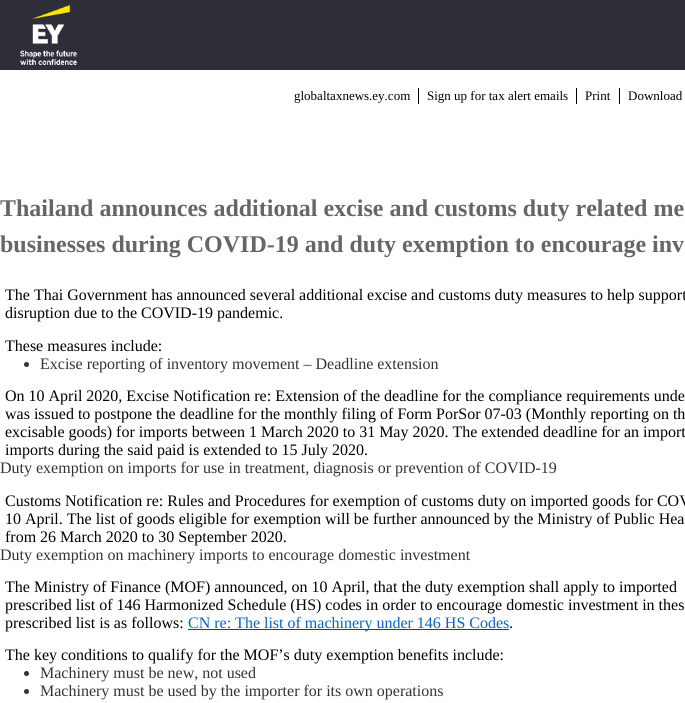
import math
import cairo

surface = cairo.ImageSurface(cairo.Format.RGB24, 685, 703)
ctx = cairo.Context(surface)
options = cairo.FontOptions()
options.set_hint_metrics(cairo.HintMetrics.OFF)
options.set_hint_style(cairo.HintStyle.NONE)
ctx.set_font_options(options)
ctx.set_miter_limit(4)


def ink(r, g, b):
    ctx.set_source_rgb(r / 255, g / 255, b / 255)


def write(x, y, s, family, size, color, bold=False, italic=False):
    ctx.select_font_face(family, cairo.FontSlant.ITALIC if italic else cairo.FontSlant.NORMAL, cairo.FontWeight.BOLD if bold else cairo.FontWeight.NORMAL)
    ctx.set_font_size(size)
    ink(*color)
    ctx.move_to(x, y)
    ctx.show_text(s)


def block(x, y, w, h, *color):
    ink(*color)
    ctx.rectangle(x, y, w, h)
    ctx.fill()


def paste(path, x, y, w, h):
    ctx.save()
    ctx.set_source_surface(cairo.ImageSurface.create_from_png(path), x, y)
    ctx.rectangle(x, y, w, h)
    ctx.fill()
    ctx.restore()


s1 = dict(family="Liberation Serif", size=13, color=(0, 0, 0))
s2 = dict(family="Liberation Serif", size=24, color=(102, 102, 102), bold=True)
s3 = dict(family="Liberation Serif", size=16, color=(0, 0, 0))
s4 = dict(family="Liberation Serif", size=16, color=(51, 51, 51))
s5 = dict(family="Liberation Serif", size=16, color=(0, 102, 204))

ink(255, 255, 255)
ctx.paint()
block(0, 0, 685, 70, 46, 46, 56)
paste("pic1.png", 20, 5, 57, 60)
write(294, 100, "globaltaxnews.ey.com", **s1)
block(418, 88, 1, 16, 0, 0, 0)
write(427, 100, "Sign up for tax alert emails", **s1)
block(576, 88, 1, 16, 0, 0, 0)
write(585, 100, "Print", **s1)
block(619, 88, 1, 16, 0, 0, 0)
write(628, 100, "Download", **s1)
write(0, 216, "Thailand announces additional excise and customs duty related me", **s2)
write(0, 252, "businesses during COVID-19 and duty exemption to encourage inv", **s2)
write(5, 300, "The Thai Government has announced several additional excise and customs duty measures to help support", **s3)
write(5, 318, "disruption due to the COVID-19 pandemic.", **s3)
write(5, 351, "These measures include:", **s3)
ink(51, 51, 51)
ctx.new_path()
ctx.arc(26.5, 364.5, 2.5, 0, 2 * math.pi)
ctx.fill()
write(40, 369, "Excise reporting of inventory movement – Deadline extension", **s4)
write(5, 401, "On 10 April 2020, Excise Notification re: Extension of the deadline for the compliance requirements unde", **s3)
write(5, 419, "was issued to postpone the deadline for the monthly filing of Form PorSor 07-03 (Monthly reporting on th", **s3)
write(5, 437, "excisable goods) for imports between 1 March 2020 to 31 May 2020. The extended deadline for an import", **s3)
write(5, 455, "imports during the said paid is extended to 15 July 2020.", **s3)
write(0, 473, "Duty exemption on imports for use in treatment, diagnosis or prevention of COVID-19", **s4)
write(5, 506, "Customs Notification re: Rules and Procedures for exemption of customs duty on imported goods for COV", **s3)
write(5, 524, "10 April. The list of goods eligible for exemption will be further announced by the Ministry of Public Hea", **s3)
write(5, 542, "from 26 March 2020 to 30 September 2020.", **s3)
write(0, 560, "Duty exemption on machinery imports to encourage domestic investment", **s4)
write(5, 592, "The Ministry of Finance (MOF) announced, on 10 April, that the duty exemption shall apply to imported", **s3)
write(5, 610, "prescribed list of 146 Harmonized Schedule (HS) codes in order to encourage domestic investment in thes", **s3)
write(5, 628, "prescribed list is as follows:", **s3)
block(188, 629, 321, 1, 0, 68, 153)
write(188, 628, "CN re: The list of machinery under 146 HS Codes", **s5)
write(509, 628, ".", **s3)
write(5, 660, "The key conditions to qualify for the MOF’s duty exemption benefits include:", **s3)
ink(51, 51, 51)
ctx.new_path()
ctx.arc(26.5, 673.5, 2.5, 0, 2 * math.pi)
ctx.fill()
write(40, 678, "Machinery must be new, not used", **s4)
ctx.new_path()
ctx.arc(26.5, 691.5, 2.5, 0, 2 * math.pi)
ctx.fill()
write(40, 696, "Machinery must be used by the importer for its own operations", **s4)
surface.write_to_png("screenshot.png")
